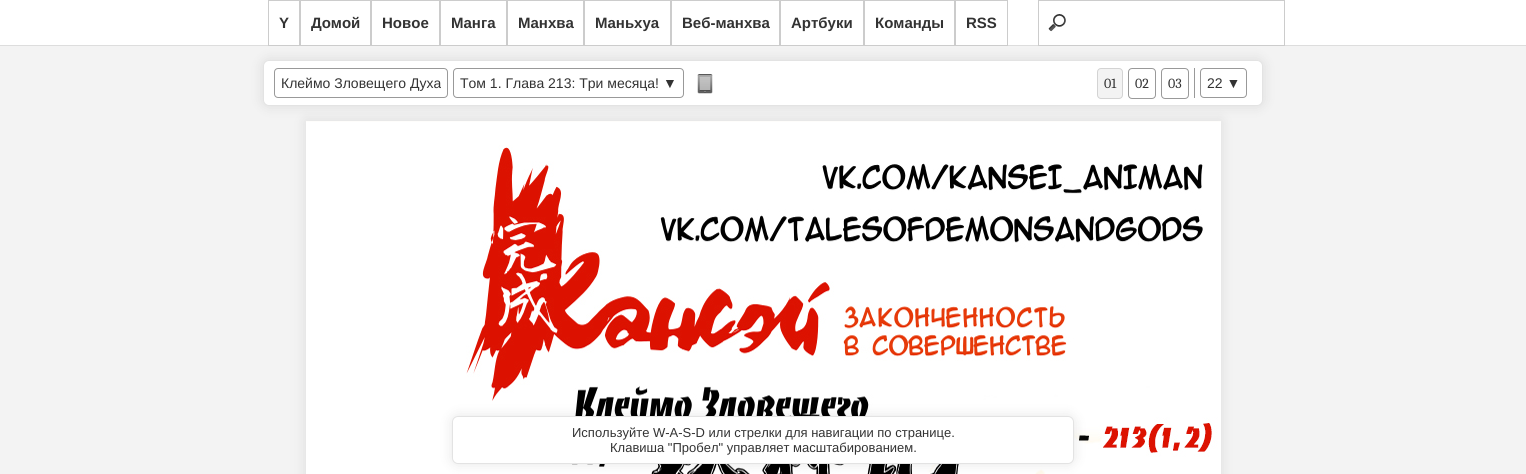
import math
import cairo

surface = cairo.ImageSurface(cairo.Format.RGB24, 1526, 474)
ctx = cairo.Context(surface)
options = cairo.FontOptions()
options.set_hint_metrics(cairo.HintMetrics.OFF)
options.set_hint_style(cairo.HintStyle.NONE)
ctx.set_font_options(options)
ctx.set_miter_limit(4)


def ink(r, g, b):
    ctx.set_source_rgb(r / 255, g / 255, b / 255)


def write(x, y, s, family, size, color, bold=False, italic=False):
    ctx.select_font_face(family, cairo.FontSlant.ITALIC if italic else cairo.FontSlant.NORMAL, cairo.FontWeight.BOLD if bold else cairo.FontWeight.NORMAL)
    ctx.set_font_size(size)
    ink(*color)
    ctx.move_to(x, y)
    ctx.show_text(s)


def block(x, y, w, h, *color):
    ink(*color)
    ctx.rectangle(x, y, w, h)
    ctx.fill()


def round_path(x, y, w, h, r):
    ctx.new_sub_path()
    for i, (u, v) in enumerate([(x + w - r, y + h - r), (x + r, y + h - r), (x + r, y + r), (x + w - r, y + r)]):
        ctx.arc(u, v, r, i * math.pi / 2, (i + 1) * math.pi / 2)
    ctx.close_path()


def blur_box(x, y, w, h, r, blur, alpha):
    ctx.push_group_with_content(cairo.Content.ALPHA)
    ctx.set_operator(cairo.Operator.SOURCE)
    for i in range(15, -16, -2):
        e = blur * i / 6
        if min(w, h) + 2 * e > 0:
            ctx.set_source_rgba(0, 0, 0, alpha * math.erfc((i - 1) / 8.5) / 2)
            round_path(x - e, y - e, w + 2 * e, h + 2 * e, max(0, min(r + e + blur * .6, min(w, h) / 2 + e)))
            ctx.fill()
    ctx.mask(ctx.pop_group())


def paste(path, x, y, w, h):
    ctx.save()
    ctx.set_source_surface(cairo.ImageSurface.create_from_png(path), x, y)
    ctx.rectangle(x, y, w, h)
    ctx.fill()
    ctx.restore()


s1 = dict(family="Liberation Sans", size=15, color=(51, 51, 51), bold=True)
s2 = dict(family="Liberation Sans", size=14, color=(51, 51, 51))
s3 = dict(family="Caladea", size=14, color=(51, 51, 51))
s4 = dict(family="Liberation Sans", size=13, color=(51, 51, 51))

ink(243, 243, 243)
ctx.paint()
ink(0, 0, 0)
blur_box(263, 60, 1000, 46, 6, 6.5, 0.1)
block(0, 0, 1526, 45, 255, 255, 255)
block(0, 45, 1526, 1, 221, 221, 221)
ctx.rectangle(268.5, 0.5, 31, 45)
ink(204, 204, 204)
ctx.set_line_width(1)
ctx.stroke()
write(279, 28, "Y", **s1)
ctx.rectangle(300.5, 0.5, 70, 45)
ink(204, 204, 204)
ctx.stroke()
write(311, 28, "Домой", **s1)
ctx.rectangle(371.5, 0.5, 68, 45)
ink(204, 204, 204)
ctx.stroke()
write(382, 28, "Новое", **s1)
ctx.rectangle(440.5, 0.5, 66, 45)
ink(204, 204, 204)
ctx.stroke()
write(451, 28, "Манга", **s1)
ctx.rectangle(507.5, 0.5, 76, 45)
ink(204, 204, 204)
ctx.stroke()
write(518, 28, "Манхва", **s1)
ctx.rectangle(584.5, 0.5, 86, 45)
ink(204, 204, 204)
ctx.stroke()
write(595, 28, "Маньхуа", **s1)
ctx.rectangle(671.5, 0.5, 108, 45)
ink(204, 204, 204)
ctx.stroke()
write(682, 28, "Веб-манхва", **s1)
ctx.rectangle(780.5, 0.5, 83, 45)
ink(204, 204, 204)
ctx.stroke()
write(791, 28, "Артбуки", **s1)
ctx.rectangle(864.5, 0.5, 90, 45)
ink(204, 204, 204)
ctx.stroke()
write(875, 28, "Команды", **s1)
ctx.rectangle(955.5, 0.5, 52, 45)
ink(204, 204, 204)
ctx.stroke()
write(966, 28, "RSS", **s1)
paste("pic1.png", 1048, 14, 18, 18)
ctx.rectangle(1038.5, 0.5, 246, 45)
ink(204, 204, 204)
ctx.stroke()
ink(255, 255, 255)
round_path(263.5, 60.5, 999, 45, 5.5)
ctx.fill_preserve()
ink(227, 227, 227)
ctx.stroke()
round_path(274.5, 68.5, 173, 29, 3.5)
ink(153, 153, 153)
ctx.stroke()
write(281, 88, "Клеймо Зловещего Духа", **s2)
round_path(453.5, 68.5, 230, 29, 3.5)
ink(153, 153, 153)
ctx.stroke()
write(460, 88, "Том 1. Глава 213: Три месяца!", **s2)
write(663, 88, "▼", **s2)
paste("pic2.png", 697, 74, 16, 20)
ink(243, 243, 243)
round_path(1097.5, 68.5, 25, 30, 3.5)
ctx.fill_preserve()
ink(211, 211, 211)
ctx.stroke()
write(1104, 88, "01", **s3)
round_path(1128.5, 68.5, 27, 30, 3.5)
ink(153, 153, 153)
ctx.stroke()
write(1135, 88, "02", **s3)
round_path(1161.5, 68.5, 27, 30, 3.5)
ink(153, 153, 153)
ctx.stroke()
write(1168, 88, "03", **s3)
block(1194, 68, 1, 30, 153, 153, 153)
round_path(1200.5, 68.5, 46, 29, 3.5)
ctx.stroke()
write(1207, 88, "22 ▼", **s2)
ink(0, 0, 0)
blur_box(306, 121, 915, 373, 0, 6.5, 0.1)
paste("pic3.png", 306, 121, 915, 353)
blur_box(452, 416, 622, 48, 6, 6.5, 0.1)
ink(255, 255, 255)
round_path(452.5, 416.5, 621, 47, 5.5)
ctx.fill_preserve()
ink(227, 227, 227)
ctx.stroke()
write(572, 437, "Используйте W-A-S-D или стрелки для навигации по странице.", **s4)
write(610, 452, "Клавиша \"Пробел\" управляет масштабированием.", **s4)
surface.write_to_png("screenshot.png")
